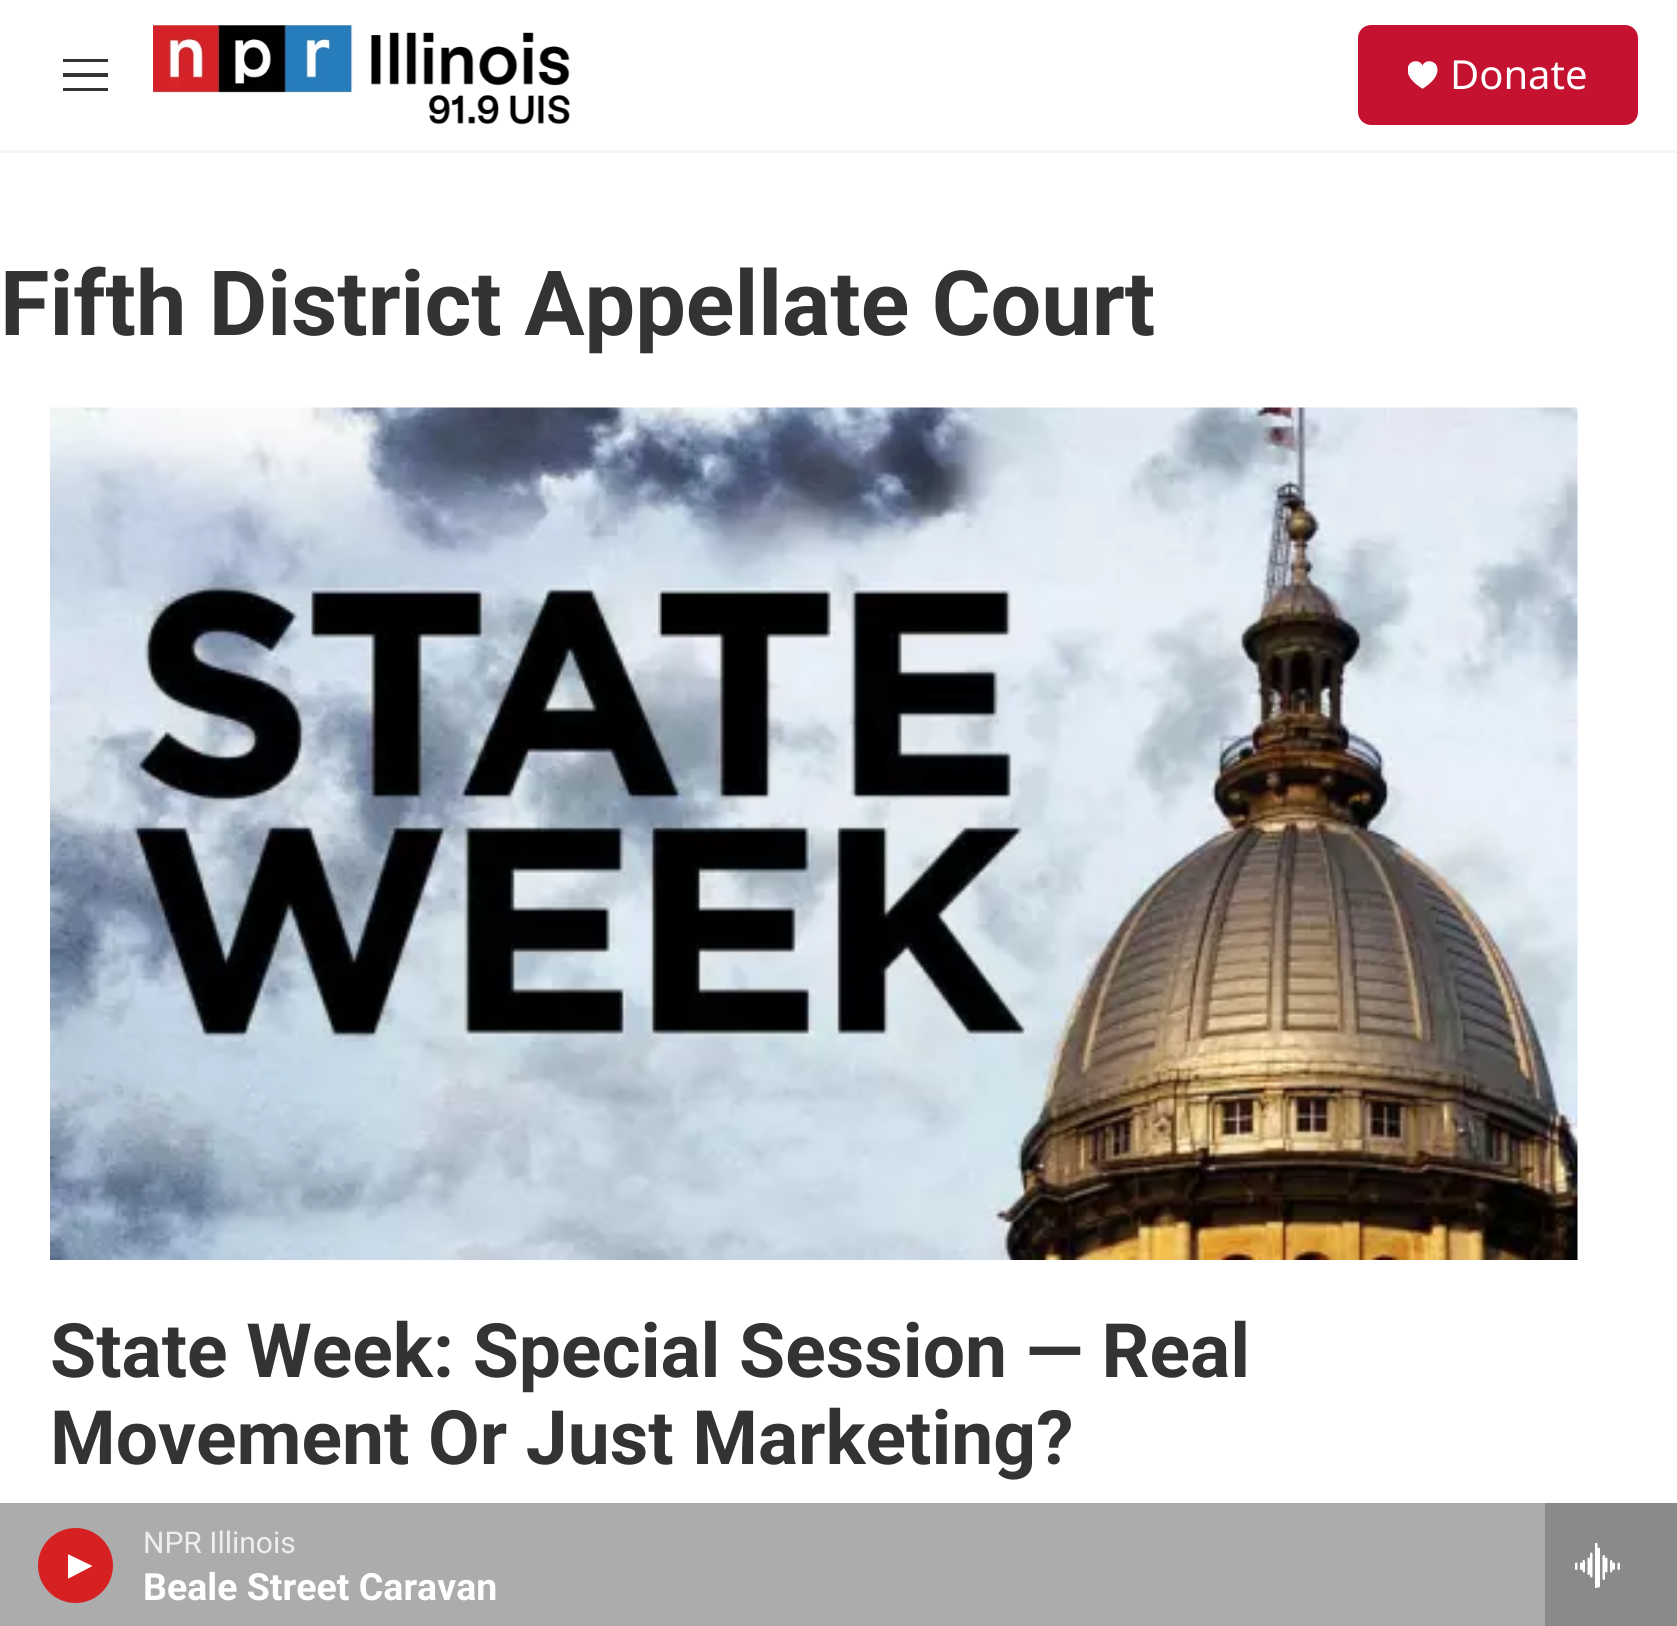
import math
import cairo

surface = cairo.ImageSurface(cairo.Format.RGB24, 1677, 1626)
ctx = cairo.Context(surface)
options = cairo.FontOptions()
options.set_hint_metrics(cairo.HintMetrics.OFF)
options.set_hint_style(cairo.HintStyle.NONE)
ctx.set_font_options(options)
ctx.set_miter_limit(4)


def ink(r, g, b):
    ctx.set_source_rgb(r / 255, g / 255, b / 255)


def write(x, y, s, family, size, color, bold=False, italic=False):
    ctx.select_font_face(family, cairo.FontSlant.ITALIC if italic else cairo.FontSlant.NORMAL, cairo.FontWeight.BOLD if bold else cairo.FontWeight.NORMAL)
    ctx.set_font_size(size)
    ink(*color)
    ctx.move_to(x, y)
    ctx.show_text(s)


def block(x, y, w, h, *color):
    ink(*color)
    ctx.rectangle(x, y, w, h)
    ctx.fill()


def round_path(x, y, w, h, r):
    ctx.new_sub_path()
    for i, (u, v) in enumerate([(x + w - r, y + h - r), (x + r, y + h - r), (x + r, y + r), (x + w - r, y + r)]):
        ctx.arc(u, v, r, i * math.pi / 2, (i + 1) * math.pi / 2)
    ctx.close_path()


def paste(path, x, y, w, h):
    ctx.save()
    ctx.set_source_surface(cairo.ImageSurface.create_from_png(path), x, y)
    ctx.rectangle(x, y, w, h)
    ctx.fill()
    ctx.restore()


s1 = dict(family="Noto Sans", size=40, color=(255, 255, 255))
s2 = dict(family="Roboto", size=30, color=(238, 238, 238))
s3 = dict(family="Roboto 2", size=37.5, color=(255, 255, 255), bold=True)
s4 = dict(family="Roboto", size=90, color=(51, 51, 51), bold=True)
s5 = dict(family="Roboto", size=75, color=(51, 51, 51), bold=True)

ink(255, 255, 255)
ctx.paint()
block(0, 150, 1677, 3, 245, 245, 245)
ctx.save()
ctx.rectangle(63, 53, 45, 45)
ctx.clip()
ink(51, 51, 51)
ctx.set_fill_rule(cairo.FillRule.EVEN_ODD)
ctx.new_path()
ctx.move_to(62, 77)
ctx.line_to(62, 73)
ctx.line_to(108, 73)
ctx.line_to(108, 77)
ctx.close_path()
ctx.move_to(62, 62)
ctx.line_to(62, 59)
ctx.line_to(108, 59)
ctx.line_to(108, 62)
ctx.close_path()
ctx.move_to(62, 91)
ctx.line_to(62, 88)
ctx.line_to(108, 88)
ctx.line_to(108, 91)
ctx.close_path()
ctx.fill()
ctx.restore()
paste("pic1.png", 153, 25, 418, 100)
ink(196, 18, 48)
round_path(1358, 25, 280, 100, 13)
ctx.fill()
paste("pic2.png", 1408, 61, 30, 28)
write(1450, 89, "Donate", **s1)
block(0, 1503, 1545, 123, 172, 172, 172)
ink(214, 32, 33)
ctx.new_path()
ctx.arc(75.5, 1565.5, 37.5, 0, 2 * math.pi)
ctx.fill()
ctx.save()
ctx.rectangle(68, 1553, 25, 27)
ctx.clip()
ink(255, 255, 255)
ctx.new_path()
ctx.move_to(67.5, 1554)
ctx.line_to(92.5, 1566)
ctx.line_to(67.5, 1579)
ctx.close_path()
ctx.fill()
ctx.restore()
write(143, 1553, "NPR Illinois", **s2)
write(143, 1600, "Beale Street Caravan", **s3)
block(1545, 1503, 132, 123, 138, 138, 138)
paste("pic3.png", 1575, 1543, 45, 45)
write(0, 335, "Fifth District Appellate Court", **s4)
paste("pic4.png", 50, 407, 1528, 853)
write(50, 1377, "State Week: Special Session — Real", **s5)
write(50, 1464, "Movement Or Just Marketing?", **s5)
surface.write_to_png("screenshot.png")
